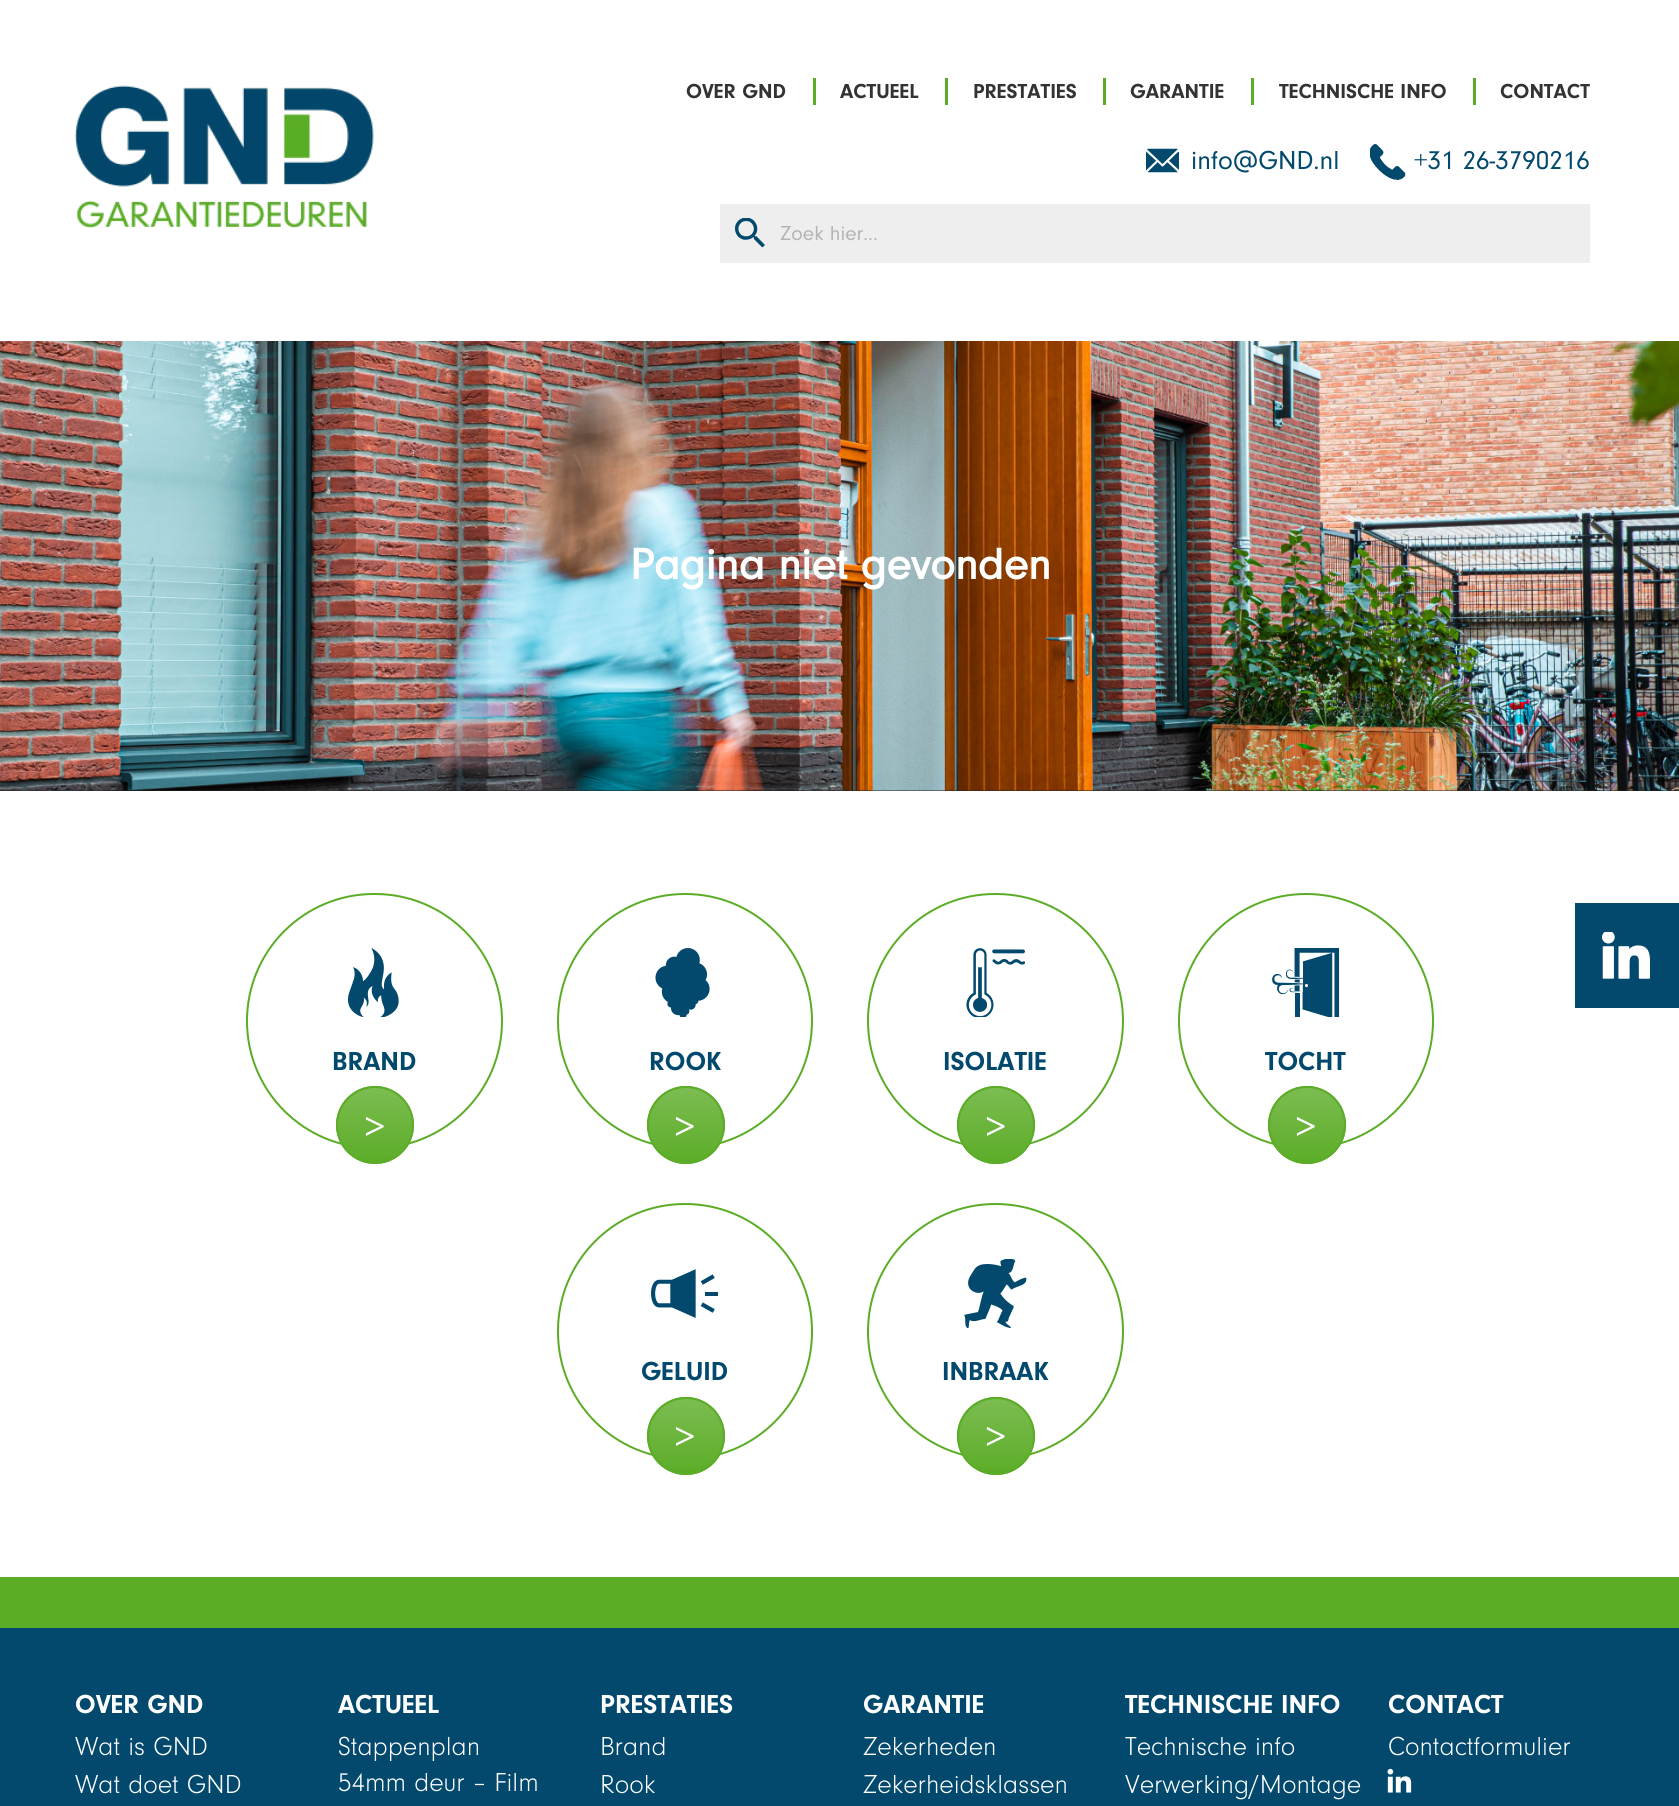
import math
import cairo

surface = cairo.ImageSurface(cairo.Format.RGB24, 1679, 1806)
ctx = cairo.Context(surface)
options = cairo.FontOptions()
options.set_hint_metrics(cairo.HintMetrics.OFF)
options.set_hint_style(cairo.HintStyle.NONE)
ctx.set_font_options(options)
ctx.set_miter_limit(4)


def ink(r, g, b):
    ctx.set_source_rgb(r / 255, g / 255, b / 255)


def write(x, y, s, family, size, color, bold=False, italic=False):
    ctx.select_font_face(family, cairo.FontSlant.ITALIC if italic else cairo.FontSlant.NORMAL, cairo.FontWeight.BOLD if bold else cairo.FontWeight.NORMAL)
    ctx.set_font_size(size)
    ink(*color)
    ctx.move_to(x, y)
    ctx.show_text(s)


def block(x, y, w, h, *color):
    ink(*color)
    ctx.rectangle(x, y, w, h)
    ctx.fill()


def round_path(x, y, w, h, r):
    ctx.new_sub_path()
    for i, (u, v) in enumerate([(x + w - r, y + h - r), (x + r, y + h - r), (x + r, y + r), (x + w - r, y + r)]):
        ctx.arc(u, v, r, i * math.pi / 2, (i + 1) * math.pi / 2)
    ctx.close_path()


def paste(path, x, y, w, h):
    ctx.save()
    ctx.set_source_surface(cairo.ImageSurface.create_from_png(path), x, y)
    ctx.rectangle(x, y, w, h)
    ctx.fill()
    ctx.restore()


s1 = dict(family="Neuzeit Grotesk", size=21, color=(51, 51, 51), bold=True)
s2 = dict(family="Neuzeit Grotesk", size=27, color=(2, 73, 109))
s3 = dict(family="Neuzeit Grotesk", size=21, color=(180, 180, 180))
s4 = dict(family="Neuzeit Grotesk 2", size=45, color=(255, 255, 255), bold=True)
s5 = dict(family="Neuzeit Grotesk", size=27, color=(2, 73, 109), bold=True)
s6 = dict(family="Liberation Serif", size=38, color=(255, 255, 255), bold=True)
s7 = dict(family="Neuzeit Grotesk", size=27, color=(255, 255, 255), bold=True)
s8 = dict(family="Neuzeit Grotesk Light", size=27, color=(255, 255, 255))

ink(255, 255, 255)
ctx.paint()
paste("pic1.png", 75, 85, 299, 143)
write(686, 98, "OVER GND", **s1)
block(813, 78, 3, 27, 91, 172, 38)
write(840, 98, "ACTUEEL", **s1)
block(945, 78, 3, 27, 91, 172, 38)
write(973, 98, "PRESTATIES", **s1)
block(1103, 78, 3, 27, 91, 172, 38)
write(1130, 98, "GARANTIE", **s1)
block(1251, 78, 3, 27, 91, 172, 38)
write(1279, 98, "TECHNISCHE INFO", **s1)
block(1473, 78, 3, 27, 91, 172, 38)
write(1500, 98, "CONTACT", **s1)
paste("pic2.png", 1146, 148, 33, 25)
write(1191, 169, "info@GND.nl", **s2)
paste("pic3.png", 1370, 144, 36, 36)
write(1414, 169, "+31 26-3790216", **s2)
block(720, 204, 870, 59, 238, 238, 238)
paste("pic4.png", 735, 218, 30, 30)
write(780, 240, "Zoek hier...", **s3)
block(0, 790, 1679, 1, 34, 34, 34)
paste("pic5.png", 0, 341, 1679, 450)
write(630, 579, "Pagina niet gevonden", **s4)
block(1575, 903, 104, 105, 2, 73, 109)
paste("pic6.png", 1602, 932, 48, 47)
round_path(247, 894, 255, 254, 127)
ink(91, 172, 38)
ctx.stroke()
paste("pic7.png", 348, 948, 51, 69)
write(332, 1070, "BRAND", **s5)
ink(91, 172, 38)
ctx.new_path()
ctx.arc(375, 1125, 39, 0, 2 * math.pi)
ctx.fill()
ctx.save()
round_path(336, 1086, 78, 78, 39)
ctx.clip()
gradient = cairo.LinearGradient(375, 1088, 375, 1163)
gradient.add_color_stop_rgba(0, 1, 1, 1, 0.2)
gradient.add_color_stop_rgba(1, 1, 1, 1, 0.01)
ctx.set_source(gradient)
ctx.rectangle(336, 1088, 78, 70)
ctx.fill()
ctx.restore()
ctx.arc(375, 1125, 38, 0, 2 * math.pi)
ctx.stroke()
write(364, 1139, ">", **s6)
ctx.new_path()
ctx.arc(685, 1021, 127, 0, 2 * math.pi)
ink(91, 172, 38)
ctx.stroke()
paste("pic8.png", 655, 948, 55, 69)
write(649, 1070, "ROOK", **s5)
ink(91, 172, 38)
ctx.new_path()
ctx.arc(686, 1125, 39, 0, 2 * math.pi)
ctx.fill()
ctx.save()
round_path(647, 1086, 78, 78, 39)
ctx.clip()
gradient = cairo.LinearGradient(686, 1088, 686, 1163)
gradient.add_color_stop_rgba(0, 1, 1, 1, 0.2)
gradient.add_color_stop_rgba(1, 1, 1, 1, 0.01)
ctx.set_source(gradient)
ctx.rectangle(647, 1088, 78, 70)
ctx.fill()
ctx.restore()
ctx.arc(686, 1125, 38, 0, 2 * math.pi)
ctx.stroke()
write(674, 1139, ">", **s6)
round_path(868, 894, 255, 254, 127)
ink(91, 172, 38)
ctx.stroke()
paste("pic9.png", 966, 948, 59, 69)
write(943, 1070, "ISOLATIE", **s5)
ink(91, 172, 38)
ctx.new_path()
ctx.arc(996, 1125, 39, 0, 2 * math.pi)
ctx.fill()
ctx.save()
round_path(957, 1086, 78, 78, 39)
ctx.clip()
gradient = cairo.LinearGradient(996, 1088, 996, 1163)
gradient.add_color_stop_rgba(0, 1, 1, 1, 0.2)
gradient.add_color_stop_rgba(1, 1, 1, 1, 0.01)
ctx.set_source(gradient)
ctx.rectangle(957, 1088, 78, 70)
ctx.fill()
ctx.restore()
ctx.arc(996, 1125, 38, 0, 2 * math.pi)
ctx.stroke()
write(985, 1139, ">", **s6)
ctx.new_path()
ctx.arc(1306, 1021, 127, 0, 2 * math.pi)
ink(91, 172, 38)
ctx.stroke()
paste("pic10.png", 1272, 948, 68, 69)
write(1265, 1070, "TOCHT", **s5)
ink(91, 172, 38)
ctx.new_path()
ctx.arc(1307, 1125, 39, 0, 2 * math.pi)
ctx.fill()
ctx.save()
round_path(1268, 1086, 78, 78, 39)
ctx.clip()
gradient = cairo.LinearGradient(1307, 1088, 1307, 1163)
gradient.add_color_stop_rgba(0, 1, 1, 1, 0.2)
gradient.add_color_stop_rgba(1, 1, 1, 1, 0.01)
ctx.set_source(gradient)
ctx.rectangle(1268, 1088, 78, 70)
ctx.fill()
ctx.restore()
ctx.arc(1307, 1125, 38, 0, 2 * math.pi)
ctx.stroke()
write(1295, 1139, ">", **s6)
round_path(558, 1204, 254, 255, 127)
ink(91, 172, 38)
ctx.stroke()
paste("pic11.png", 651, 1269, 67, 49)
write(641, 1380, "GELUID", **s5)
ink(91, 172, 38)
ctx.new_path()
ctx.arc(686, 1436, 39, 0, 2 * math.pi)
ctx.fill()
ctx.save()
round_path(647, 1397, 78, 78, 39)
ctx.clip()
gradient = cairo.LinearGradient(686, 1398, 686, 1473)
gradient.add_color_stop_rgba(0, 1, 1, 1, 0.2)
gradient.add_color_stop_rgba(1, 1, 1, 1, 0.01)
ctx.set_source(gradient)
ctx.rectangle(647, 1398, 78, 70)
ctx.fill()
ctx.restore()
ctx.arc(686, 1436, 38, 0, 2 * math.pi)
ctx.stroke()
write(674, 1449, ">", **s6)
ctx.new_path()
ctx.arc(995.5, 1331.5, 127.5, 0, 2 * math.pi)
ink(91, 172, 38)
ctx.stroke()
paste("pic12.png", 964, 1259, 63, 69)
write(942, 1380, "INBRAAK", **s5)
ink(91, 172, 38)
ctx.new_path()
ctx.arc(996, 1436, 39, 0, 2 * math.pi)
ctx.fill()
ctx.save()
round_path(957, 1397, 78, 78, 39)
ctx.clip()
gradient = cairo.LinearGradient(996, 1398, 996, 1473)
gradient.add_color_stop_rgba(0, 1, 1, 1, 0.2)
gradient.add_color_stop_rgba(1, 1, 1, 1, 0.01)
ctx.set_source(gradient)
ctx.rectangle(957, 1398, 78, 70)
ctx.fill()
ctx.restore()
ctx.arc(996, 1436, 38, 0, 2 * math.pi)
ctx.stroke()
write(985, 1449, ">", **s6)
block(0, 1628, 1679, 178, 2, 73, 109)
block(0, 1577, 1679, 51, 91, 172, 38)
write(75, 1713, "OVER GND", **s7)
write(75, 1755, "Wat is GND", **s8)
write(75, 1793, "Wat doet GND", **s8)
write(338, 1713, "ACTUEEL", **s7)
write(338, 1755, "Stappenplan", **s8)
write(338, 1791, "54mm deur – Film", **s8)
write(600, 1713, "PRESTATIES", **s7)
write(600, 1755, "Brand", **s8)
write(600, 1793, "Rook", **s8)
write(863, 1713, "GARANTIE", **s7)
write(863, 1755, "Zekerheden", **s8)
write(863, 1793, "Zekerheidsklassen", **s8)
write(1125, 1713, "TECHNISCHE INFO", **s7)
write(1125, 1755, "Technische info", **s8)
write(1125, 1793, "Verwerking/Montage", **s8)
write(1388, 1713, "CONTACT", **s7)
write(1388, 1755, "Contactformulier", **s8)
paste("pic13.png", 1387, 1768, 25, 25)
surface.write_to_png("screenshot.png")
